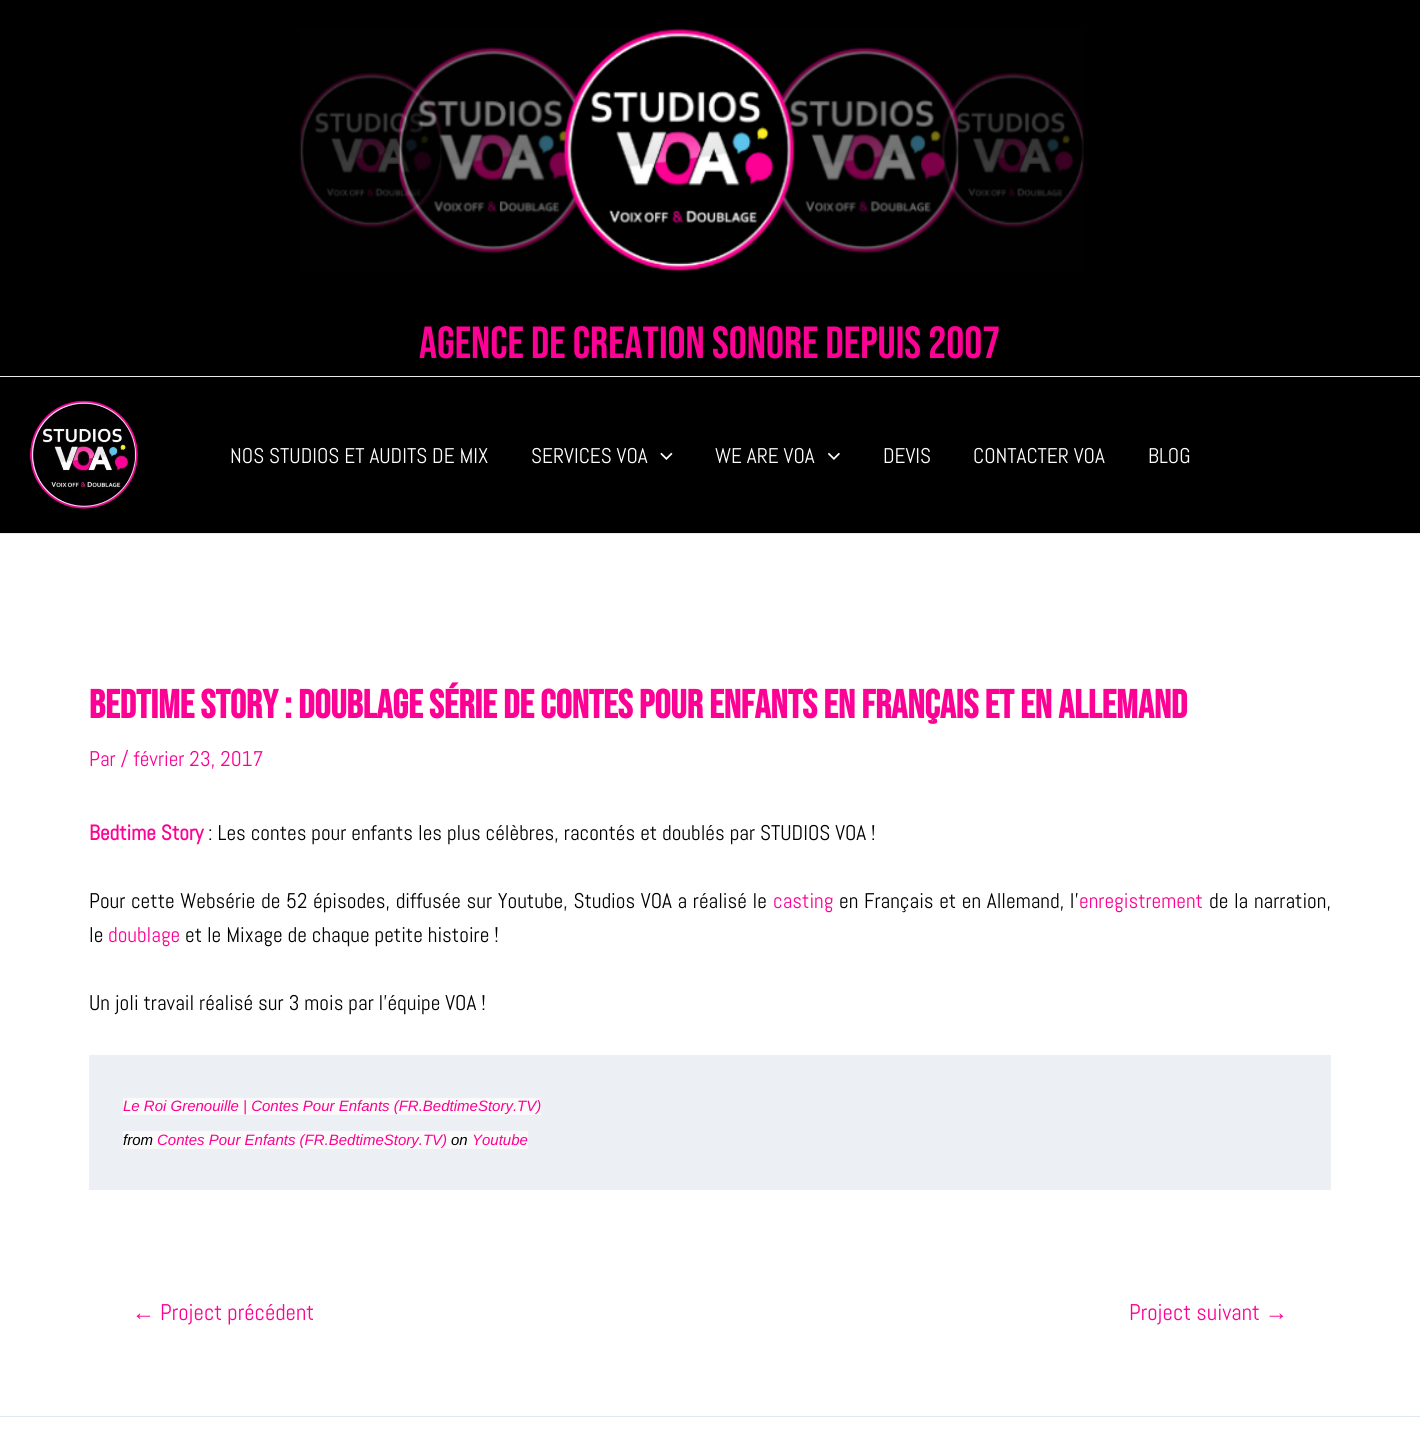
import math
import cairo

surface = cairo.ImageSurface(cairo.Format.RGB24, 1420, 1432)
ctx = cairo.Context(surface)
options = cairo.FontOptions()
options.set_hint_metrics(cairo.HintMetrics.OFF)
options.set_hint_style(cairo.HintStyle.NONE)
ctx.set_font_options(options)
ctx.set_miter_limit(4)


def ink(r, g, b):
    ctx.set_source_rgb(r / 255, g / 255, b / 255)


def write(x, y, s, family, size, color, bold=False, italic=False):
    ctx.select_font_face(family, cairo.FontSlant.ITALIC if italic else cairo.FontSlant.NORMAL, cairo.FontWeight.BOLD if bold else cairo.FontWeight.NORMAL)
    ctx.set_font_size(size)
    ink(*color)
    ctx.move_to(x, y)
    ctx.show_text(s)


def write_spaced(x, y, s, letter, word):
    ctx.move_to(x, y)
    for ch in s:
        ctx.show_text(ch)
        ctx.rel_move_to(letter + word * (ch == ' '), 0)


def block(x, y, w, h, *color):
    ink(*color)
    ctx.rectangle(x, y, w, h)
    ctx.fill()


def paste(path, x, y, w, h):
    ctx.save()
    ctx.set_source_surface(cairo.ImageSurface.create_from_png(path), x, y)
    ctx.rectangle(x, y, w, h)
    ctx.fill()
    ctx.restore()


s1 = dict(family="Bebas Neue", size=45, color=(253, 0, 148))
s2 = dict(family="Abel", size=21.25, color=(255, 255, 255))
s3 = dict(family="Bebas Neue", size=40, color=(253, 0, 148), bold=True)
s4 = dict(family="Abel", size=21.25, color=(253, 0, 148))
s5 = dict(family="Abel", size=21.25, color=(253, 0, 148), bold=True)
s6 = dict(family="Abel", size=21.25, color=(0, 0, 0))
s7 = dict(family="Liberation Sans", size=15, color=(253, 0, 148), italic=True)
s8 = dict(family="Liberation Sans", size=15, color=(0, 0, 0), italic=True)
s9 = dict(family="Liberation Sans", size=22.75, color=(253, 0, 148))
s10 = dict(family="Abel", size=22.75, color=(253, 0, 148))

ink(255, 255, 255)
ctx.paint()
block(0, 0, 1420, 313, 0, 0, 0)
paste("pic1.png", 299, 28, 785, 244)
block(0, 313, 1420, 220, 0, 0, 0)
block(0, 376, 1420, 1, 234, 234, 234)
write(419, 358, "AGENCE DE CREATION SONORE DEPUIS 2007", **s1)
block(0, 533, 1420, 1, 234, 234, 234)
paste("pic2.png", 30, 400, 108, 109)
write(230, 463, "NOS STUDIOS ET AUDITS DE MIX", **s2)
write(531, 463, "SERVICES VOA", **s2)
paste("pic3.png", 660, 452, 13, 8)
write(715, 463, "WE ARE VOA", **s2)
paste("pic4.png", 828, 452, 12, 8)
write(883, 463, "DEVIS", **s2)
write(973, 463, "CONTACTER VOA", **s2)
write(1148, 463, "BLOG", **s2)
write(89, 718, "Bedtime Story : Doublage série de contes pour enfants en Français et en Allemand", **s3)
write(89, 766, "Par / février 23, 2017", **s4)
write(89, 840, "Bedtime Story", **s5)
write(208, 840, ": Les contes pour enfants les plus célèbres, racontés et doublés par STUDIOS VOA !", **s6)
write_spaced(89, 908, "Pour cette Websérie de 52 épisodes, diffusée sur Youtube, Studios VOA a réalisé le", 0, 0.75)
write(773, 908, "casting", **s4)
ink(0, 0, 0)
write_spaced(839, 908, "en Français et en Allemand, l’", 0, 0.75)
write(1079, 908, "enregistrement", **s4)
ink(0, 0, 0)
write_spaced(1209, 908, "de la narration,", 0, 0.75)
write(89, 942, "le", **s6)
write(108, 942, "doublage", **s4)
write(185, 942, "et le Mixage de chaque petite histoire !", **s6)
write(89, 1010, "Un joli travail réalisé sur 3 mois par l’équipe VOA !", **s6)
block(89, 1055, 1242, 135, 236, 239, 243)
block(123, 1098, 418, 17, 250, 250, 250)
write(123, 1111, "Le Roi Grenouille | Contes Pour Enfants (FR.BedtimeStory.TV)", **s7)
block(123, 1131, 405, 18, 250, 250, 250)
write(123, 1145, "from", **s8)
write(157, 1145, "Contes Pour Enfants (FR.BedtimeStory.TV)", **s7)
write(451, 1145, "on", **s8)
write(472, 1145, "Youtube", **s7)
write(132, 1320, "←", **s9)
write(160, 1320, "Project précédent", **s10)
write(1129, 1320, "Project suivant", **s10)
write(1265, 1320, "→", **s9)
block(0, 1416, 1420, 1, 226, 232, 240)
surface.write_to_png("screenshot.png")
